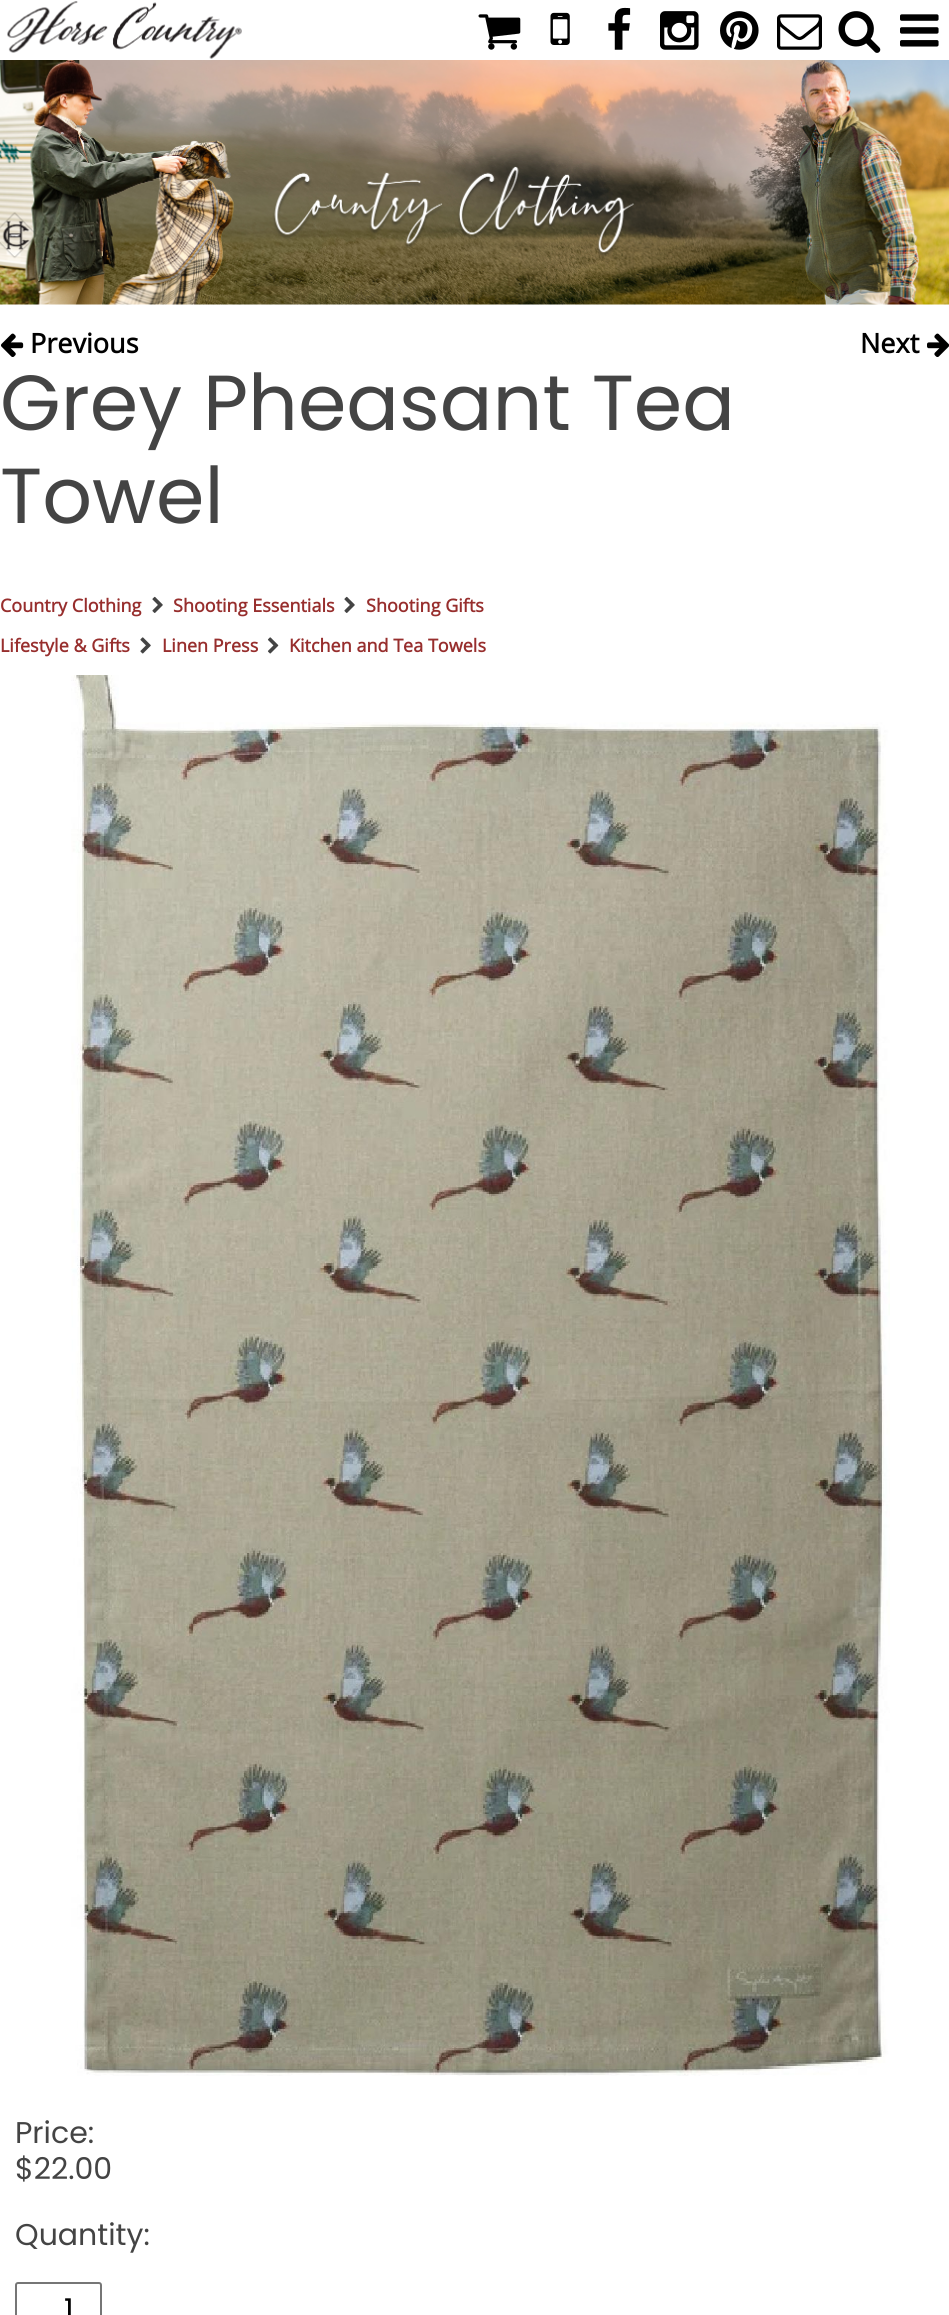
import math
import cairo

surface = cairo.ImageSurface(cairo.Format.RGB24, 949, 2315)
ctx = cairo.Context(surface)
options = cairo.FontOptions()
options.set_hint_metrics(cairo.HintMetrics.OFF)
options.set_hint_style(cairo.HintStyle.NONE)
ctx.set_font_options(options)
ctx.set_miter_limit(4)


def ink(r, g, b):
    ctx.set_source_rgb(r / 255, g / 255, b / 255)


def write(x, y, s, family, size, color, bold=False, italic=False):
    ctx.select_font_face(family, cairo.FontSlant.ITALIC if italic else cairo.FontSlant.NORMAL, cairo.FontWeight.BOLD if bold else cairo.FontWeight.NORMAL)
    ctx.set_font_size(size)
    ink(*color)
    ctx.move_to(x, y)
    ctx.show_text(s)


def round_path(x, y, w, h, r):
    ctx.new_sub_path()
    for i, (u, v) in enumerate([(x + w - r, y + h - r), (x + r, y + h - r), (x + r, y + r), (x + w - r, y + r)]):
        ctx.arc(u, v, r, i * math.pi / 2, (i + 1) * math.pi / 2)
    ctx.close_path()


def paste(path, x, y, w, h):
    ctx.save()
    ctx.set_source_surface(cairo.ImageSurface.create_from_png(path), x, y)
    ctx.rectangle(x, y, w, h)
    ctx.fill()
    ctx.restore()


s1 = dict(family="Open Sans", size=27, color=(0, 0, 0), bold=True)
s2 = dict(family="Poppins", size=78, color=(68, 68, 68))
s3 = dict(family="Open Sans", size=18, color=(151, 46, 45), bold=True)
s4 = dict(family="Poppins", size=30, color=(68, 68, 68))
s5 = dict(family="Poppins", size=30, color=(0, 0, 0))

ink(255, 255, 255)
ctx.paint()
paste("pic1.png", 7, 1, 235, 58)
paste("pic2.png", 478, 14, 43, 36)
paste("pic3.png", 550, 12, 20, 33)
paste("pic4.png", 608, 7, 23, 43)
paste("pic5.png", 660, 11, 39, 39)
paste("pic6.png", 720, 11, 39, 39)
paste("pic7.png", 777, 14, 45, 36)
paste("pic8.png", 838, 11, 43, 42)
paste("pic9.png", 900, 14, 39, 33)
paste("pic10.png", 0, 60, 949, 245)
paste("pic11.png", 1, 333, 23, 24)
write(30, 353, "Previous", **s1)
write(860, 353, "Next", **s1)
paste("pic12.png", 927, 333, 22, 24)
write(0, 430, "Grey Pheasant Tea", **s2)
write(0, 523, "Towel", **s2)
write(0, 612, "Country Clothing", **s3)
paste("pic13.png", 152, 596, 11, 17)
write(173, 612, "Shooting Essentials", **s3)
paste("pic13.png", 344, 596, 11, 17)
write(366, 612, "Shooting Gifts", **s3)
write(0, 652, "Lifestyle & Gifts", **s3)
paste("pic14.png", 140, 637, 11, 17)
write(162, 652, "Linen Press", **s3)
paste("pic15.png", 267, 637, 12, 17)
write(289, 652, "Kitchen and Tea Towels", **s3)
paste("pic16.png", 71, 675, 819, 1401)
write(15, 2143, "Price:", **s4)
write(15, 2179, "$22.00", **s4)
write(15, 2245, "Quantity:", **s4)
round_path(16, 2283, 85, 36, 2)
ink(118, 118, 118)
ctx.stroke()
write(64, 2320, "1", **s5)
surface.write_to_png("screenshot.png")
